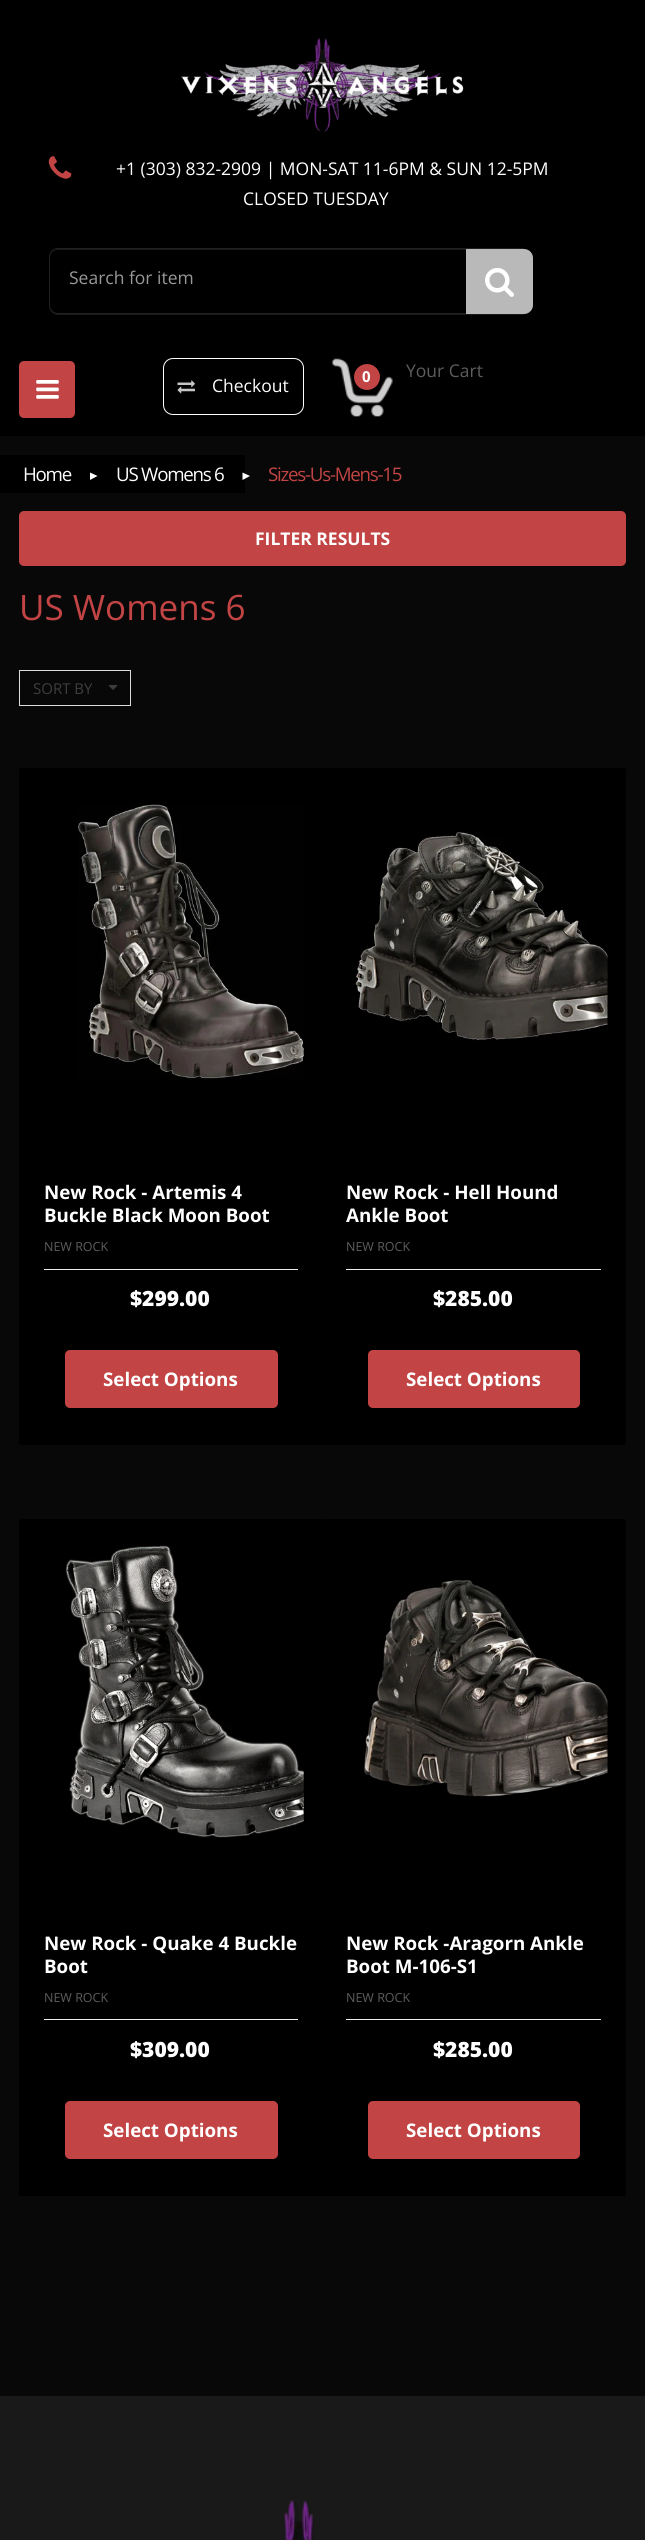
import math
import cairo

surface = cairo.ImageSurface(cairo.Format.RGB24, 645, 2540)
ctx = cairo.Context(surface)
options = cairo.FontOptions()
options.set_hint_metrics(cairo.HintMetrics.OFF)
options.set_hint_style(cairo.HintStyle.NONE)
ctx.set_font_options(options)
ctx.set_miter_limit(4)


def ink(r, g, b):
    ctx.set_source_rgb(r / 255, g / 255, b / 255)


def write(x, y, s, family, size, color, bold=False, italic=False):
    ctx.select_font_face(family, cairo.FontSlant.ITALIC if italic else cairo.FontSlant.NORMAL, cairo.FontWeight.BOLD if bold else cairo.FontWeight.NORMAL)
    ctx.set_font_size(size)
    ink(*color)
    ctx.move_to(x, y)
    ctx.show_text(s)


def write_spaced(x, y, s, letter, word):
    ctx.move_to(x, y)
    for ch in s:
        ctx.show_text(ch)
        ctx.rel_move_to(letter + word * (ch == ' '), 0)


def block(x, y, w, h, *color):
    ink(*color)
    ctx.rectangle(x, y, w, h)
    ctx.fill()


def round_path(x, y, w, h, r):
    ctx.new_sub_path()
    for i, (u, v) in enumerate([(x + w - r, y + h - r), (x + r, y + h - r), (x + r, y + r), (x + w - r, y + r)]):
        ctx.arc(u, v, r, i * math.pi / 2, (i + 1) * math.pi / 2)
    ctx.close_path()


def paste(path, x, y, w, h):
    ctx.save()
    ctx.set_source_surface(cairo.ImageSurface.create_from_png(path), x, y)
    ctx.rectangle(x, y, w, h)
    ctx.fill()
    ctx.restore()


s1 = dict(family="Open Sans", size=17.5, color=(255, 255, 255))
s2 = dict(family="Open Sans", size=17.5, color=(153, 153, 153))
s3 = dict(family="Open Sans", size=15, color=(255, 255, 255), bold=True)
s4 = dict(family="Open Sans", size=17.5, color=(93, 93, 93))
s5 = dict(family="Open Sans", size=17.5, color=(255, 255, 255), bold=True)
s6 = dict(family="Open Sans", size=35, color=(194, 68, 68))
s7 = dict(family="Open Sans", size=15, color=(61, 61, 61))
s8 = dict(family="Open Sans", size=18.75, color=(255, 255, 255), bold=True)
s9 = dict(family="Open Sans", size=12.5, color=(93, 93, 93))
s10 = dict(family="Open Sans ExtraBold", size=21, color=(255, 255, 255))

ink(8, 8, 8)
ctx.paint()
block(0, 0, 645, 436, 0, 0, 0)
ink(194, 68, 68)
round_path(19, 361, 56, 57, 5)
ctx.fill()
paste("pic1.png", 36, 380, 23, 19)
paste("pic2.png", 181, 38, 283, 94)
paste("pic3.png", 48, 156, 24, 23)
write(116, 175, "+1 (303) 832-2909 | MON-SAT 11-6PM & SUN 12-5PM", **s1)
write(243, 205, "CLOSED TUESDAY", **s1)
ink(26, 26, 26)
ctx.new_path()
ctx.move_to(49, 308)
ctx.curve_to(50, 312, 54, 315, 58, 315)
ctx.line_to(521, 315)
ctx.curve_to(526, 315, 530, 311, 530, 306)
ctx.line_to(530, 305)
ctx.curve_to(530, 310, 526, 314, 521, 314)
ctx.line_to(58, 314)
ctx.curve_to(54, 314, 50, 311, 49, 308)
ctx.close_path()
ctx.fill()
ctx.new_path()
ctx.move_to(58, 250)
ctx.line_to(521, 250)
ctx.curve_to(525, 250, 529, 253, 529, 258)
ctx.curve_to(529, 253, 526, 249, 521, 249)
ctx.line_to(58, 249)
ctx.curve_to(53, 249, 50, 253, 50, 258)
ctx.curve_to(50, 253, 53, 250, 58, 250)
ctx.close_path()
ctx.fill()
round_path(49.5, 248.5, 480, 65, 8.5)
ink(33, 33, 33)
ctx.set_line_width(1)
ctx.stroke()
write(69, 284, "Search for item", **s2)
ink(185, 185, 185)
ctx.new_path()
ctx.move_to(466, 249)
ctx.line_to(524, 249)
ctx.curve_to(529, 249, 533, 253, 533, 258)
ctx.line_to(533, 305)
ctx.curve_to(533, 310, 529, 314, 524, 314)
ctx.line_to(466, 314)
ctx.close_path()
ctx.fill()
paste("pic4.png", 485, 268, 29, 29)
paste("pic5.png", 332, 358, 61, 59)
ink(194, 68, 68)
ctx.arc(367, 377, 13, 0, 2 * math.pi)
ctx.fill()
write(362, 382, "0", **s3)
write(406, 377, "Your Cart", **s4)
round_path(163.5, 358.5, 140, 56, 9.5)
ink(255, 255, 255)
ctx.stroke()
paste("pic6.png", 177, 380, 18, 14)
write(212, 392, "Checkout", **s1)
block(0, 455, 245, 38, 0, 0, 0)
ctx.set_font_size(18.75)
ink(255, 255, 255)
write_spaced(23, 481, "Home", -1.25, 0)
ctx.new_path()
ctx.move_to(90, 480)
ctx.line_to(90, 472.5)
ctx.line_to(97.5, 476)
ctx.close_path()
ctx.fill()
write_spaced(116, 481, "US Womens 6", -1.25, 0)
ctx.new_path()
ctx.move_to(242.5, 480)
ctx.line_to(242.5, 472.5)
ctx.line_to(250, 476)
ctx.close_path()
ctx.fill()
ink(194, 68, 68)
write_spaced(268, 481, "Sizes-Us-Mens-15", -1.25, 0)
round_path(19, 511, 607, 55, 5)
ctx.fill()
write(255, 545, "FILTER RESULTS", **s5)
write(19, 620, "US Womens 6", **s6)
ctx.rectangle(19.5, 670.5, 111, 35)
ink(221, 221, 221)
ctx.stroke()
write(33, 694, "SORT BY", **s7)
paste("pic7.png", 108, 685, 10, 5)
ink(0, 0, 0)
round_path(19, 768, 304, 677, 2.5)
ctx.fill()
paste("pic8.png", 78, 804, 226, 276)
write(44, 1199, "New Rock - Artemis 4", **s8)
write(44, 1222, "Buckle Black Moon Boot", **s8)
write(44, 1251, "NEW ROCK", **s9)
block(44, 1269, 254, 1, 236, 236, 236)
write(130, 1306, "$299.00", **s10)
ink(194, 68, 68)
round_path(65, 1350, 213, 58, 5)
ctx.fill()
write(103, 1386, "Select Options", **s8)
ink(0, 0, 0)
round_path(321, 768, 305, 677, 2.5)
ctx.fill()
paste("pic9.png", 355, 832, 253, 209)
write(346, 1199, "New Rock - Hell Hound", **s8)
write(346, 1222, "Ankle Boot", **s8)
write(346, 1251, "NEW ROCK", **s9)
block(346, 1269, 255, 1, 236, 236, 236)
write(433, 1306, "$285.00", **s10)
ink(194, 68, 68)
round_path(368, 1350, 212, 58, 5)
ctx.fill()
write(406, 1386, "Select Options", **s8)
ink(0, 0, 0)
round_path(19, 1519, 304, 677, 2.5)
ctx.fill()
paste("pic10.png", 65, 1545, 239, 293)
write(44, 1950, "New Rock - Quake 4 Buckle", **s8)
write(44, 1973, "Boot", **s8)
write(44, 2002, "NEW ROCK", **s9)
block(44, 2019, 254, 1, 236, 236, 236)
write(130, 2057, "$309.00", **s10)
ink(194, 68, 68)
round_path(65, 2101, 213, 58, 5)
ctx.fill()
write(103, 2137, "Select Options", **s8)
ink(0, 0, 0)
round_path(321, 1519, 305, 677, 2.5)
ctx.fill()
paste("pic11.png", 364, 1580, 244, 217)
write(346, 1950, "New Rock -Aragorn Ankle", **s8)
write(346, 1973, "Boot M-106-S1", **s8)
write(346, 2002, "NEW ROCK", **s9)
block(346, 2019, 255, 1, 236, 236, 236)
write(433, 2057, "$285.00", **s10)
ink(194, 68, 68)
round_path(368, 2101, 212, 58, 5)
ctx.fill()
write(406, 2137, "Select Options", **s8)
block(0, 2396, 645, 144, 25, 25, 25)
paste("pic12.png", 284, 2500, 30, 40)
surface.write_to_png("screenshot.png")
